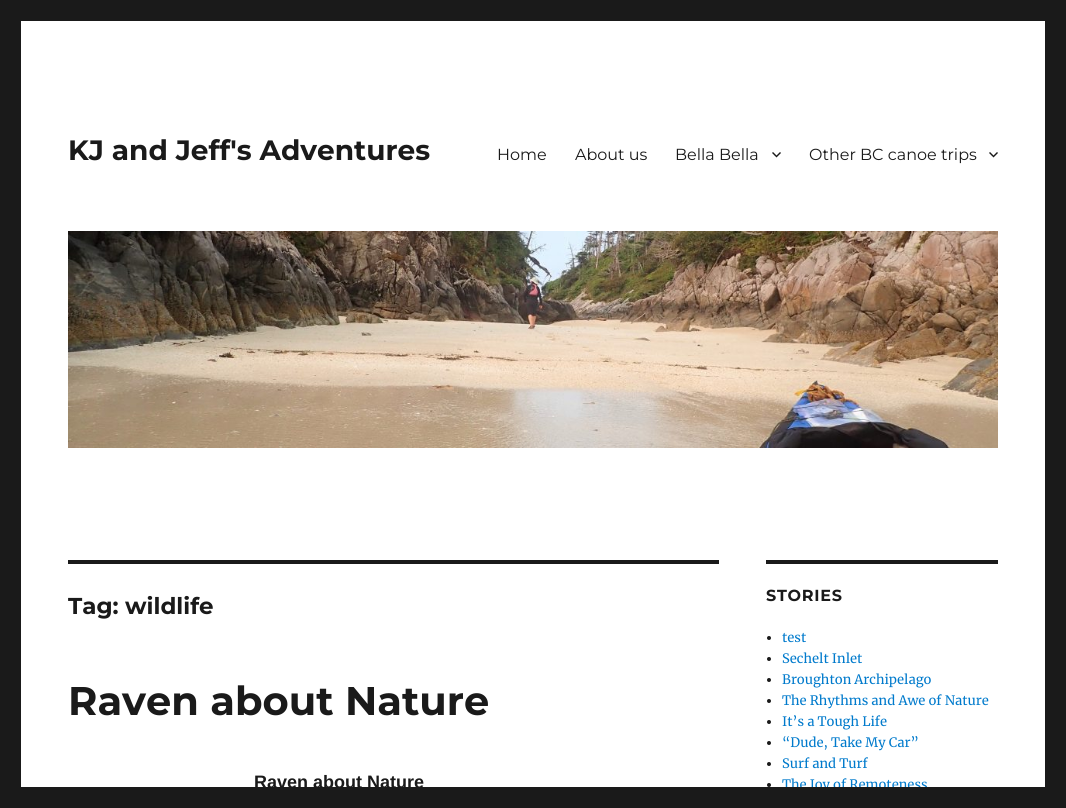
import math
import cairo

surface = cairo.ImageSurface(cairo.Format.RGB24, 1066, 808)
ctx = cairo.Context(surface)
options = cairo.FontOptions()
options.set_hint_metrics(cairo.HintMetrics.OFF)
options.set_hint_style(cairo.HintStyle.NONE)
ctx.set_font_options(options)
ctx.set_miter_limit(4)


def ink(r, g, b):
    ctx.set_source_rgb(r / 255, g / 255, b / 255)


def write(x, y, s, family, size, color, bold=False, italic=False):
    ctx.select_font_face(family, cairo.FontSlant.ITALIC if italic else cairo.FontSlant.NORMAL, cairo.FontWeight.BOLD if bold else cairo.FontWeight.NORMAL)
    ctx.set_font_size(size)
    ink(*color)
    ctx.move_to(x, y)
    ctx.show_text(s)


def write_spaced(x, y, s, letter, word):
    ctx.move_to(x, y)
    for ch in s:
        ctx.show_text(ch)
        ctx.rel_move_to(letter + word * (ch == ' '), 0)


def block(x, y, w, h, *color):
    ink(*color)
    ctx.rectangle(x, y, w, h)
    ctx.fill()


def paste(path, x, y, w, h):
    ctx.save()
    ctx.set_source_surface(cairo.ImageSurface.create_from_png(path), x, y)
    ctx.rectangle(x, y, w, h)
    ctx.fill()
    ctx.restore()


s1 = dict(family="Montserrat Thin", size=28, color=(26, 26, 26))
s2 = dict(family="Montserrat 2 Thin", size=16, color=(26, 26, 26))
s3 = dict(family="Montserrat Thin", size=23, color=(26, 26, 26))
s4 = dict(family="Montserrat Thin", size=40, color=(26, 26, 26))
s5 = dict(family="Liberation Sans", size=18, color=(26, 26, 26), bold=True)
s6 = dict(family="Merriweather", size=13, color=(0, 122, 204))

ink(26, 26, 26)
ctx.paint()
block(21, 21, 1024, 766, 255, 255, 255)
write(68, 160, "KJ and Jeff's Adventures", **s1)
write(497, 160, "Home", **s2)
write(575, 160, "About us", **s2)
write(675, 160, "Bella Bella", **s2)
paste("pic1.png", 772, 152, 9, 6)
write(809, 160, "Other BC canoe trips", **s2)
paste("pic1.png", 989, 152, 9, 6)
paste("pic2.png", 68, 231, 930, 217)
block(68, 560, 651, 4, 26, 26, 26)
write(68, 614, "Tag: wildlife", **s3)
write(68, 715, "Raven about Nature", **s4)
write(254, 788, "Raven about Nature", **s5)
block(766, 560, 232, 4, 26, 26, 26)
ctx.select_font_face("Montserrat Thin")
ctx.set_font_size(16)
write_spaced(766, 601, "STORIES", 0.75, 0)
ctx.new_path()
ctx.arc(769, 638, 2, 0, 2 * math.pi)
ctx.fill()
write(782, 642, "test", **s6)
ink(26, 26, 26)
ctx.new_path()
ctx.arc(769, 659, 2, 0, 2 * math.pi)
ctx.fill()
write(782, 663, "Sechelt Inlet", **s6)
ink(26, 26, 26)
ctx.new_path()
ctx.arc(769, 680, 2, 0, 2 * math.pi)
ctx.fill()
write(782, 684, "Broughton Archipelago", **s6)
ink(26, 26, 26)
ctx.new_path()
ctx.arc(769, 701, 2, 0, 2 * math.pi)
ctx.fill()
write(782, 705, "The Rhythms and Awe of Nature", **s6)
ink(26, 26, 26)
ctx.new_path()
ctx.arc(769, 722, 2, 0, 2 * math.pi)
ctx.fill()
write(782, 726, "It’s a Tough Life", **s6)
ink(26, 26, 26)
ctx.new_path()
ctx.arc(769, 743, 2, 0, 2 * math.pi)
ctx.fill()
write(782, 747, "“Dude, Take My Car”", **s6)
ink(26, 26, 26)
ctx.new_path()
ctx.arc(769, 764, 2, 0, 2 * math.pi)
ctx.fill()
write(782, 768, "Surf and Turf", **s6)
ink(26, 26, 26)
ctx.new_path()
ctx.arc(769, 785, 2, 0, 2 * math.pi)
ctx.fill()
write(782, 789, "The Joy of Remoteness", **s6)
block(784, 787, 143, 6, 26, 26, 26)
surface.write_to_png("screenshot.png")
